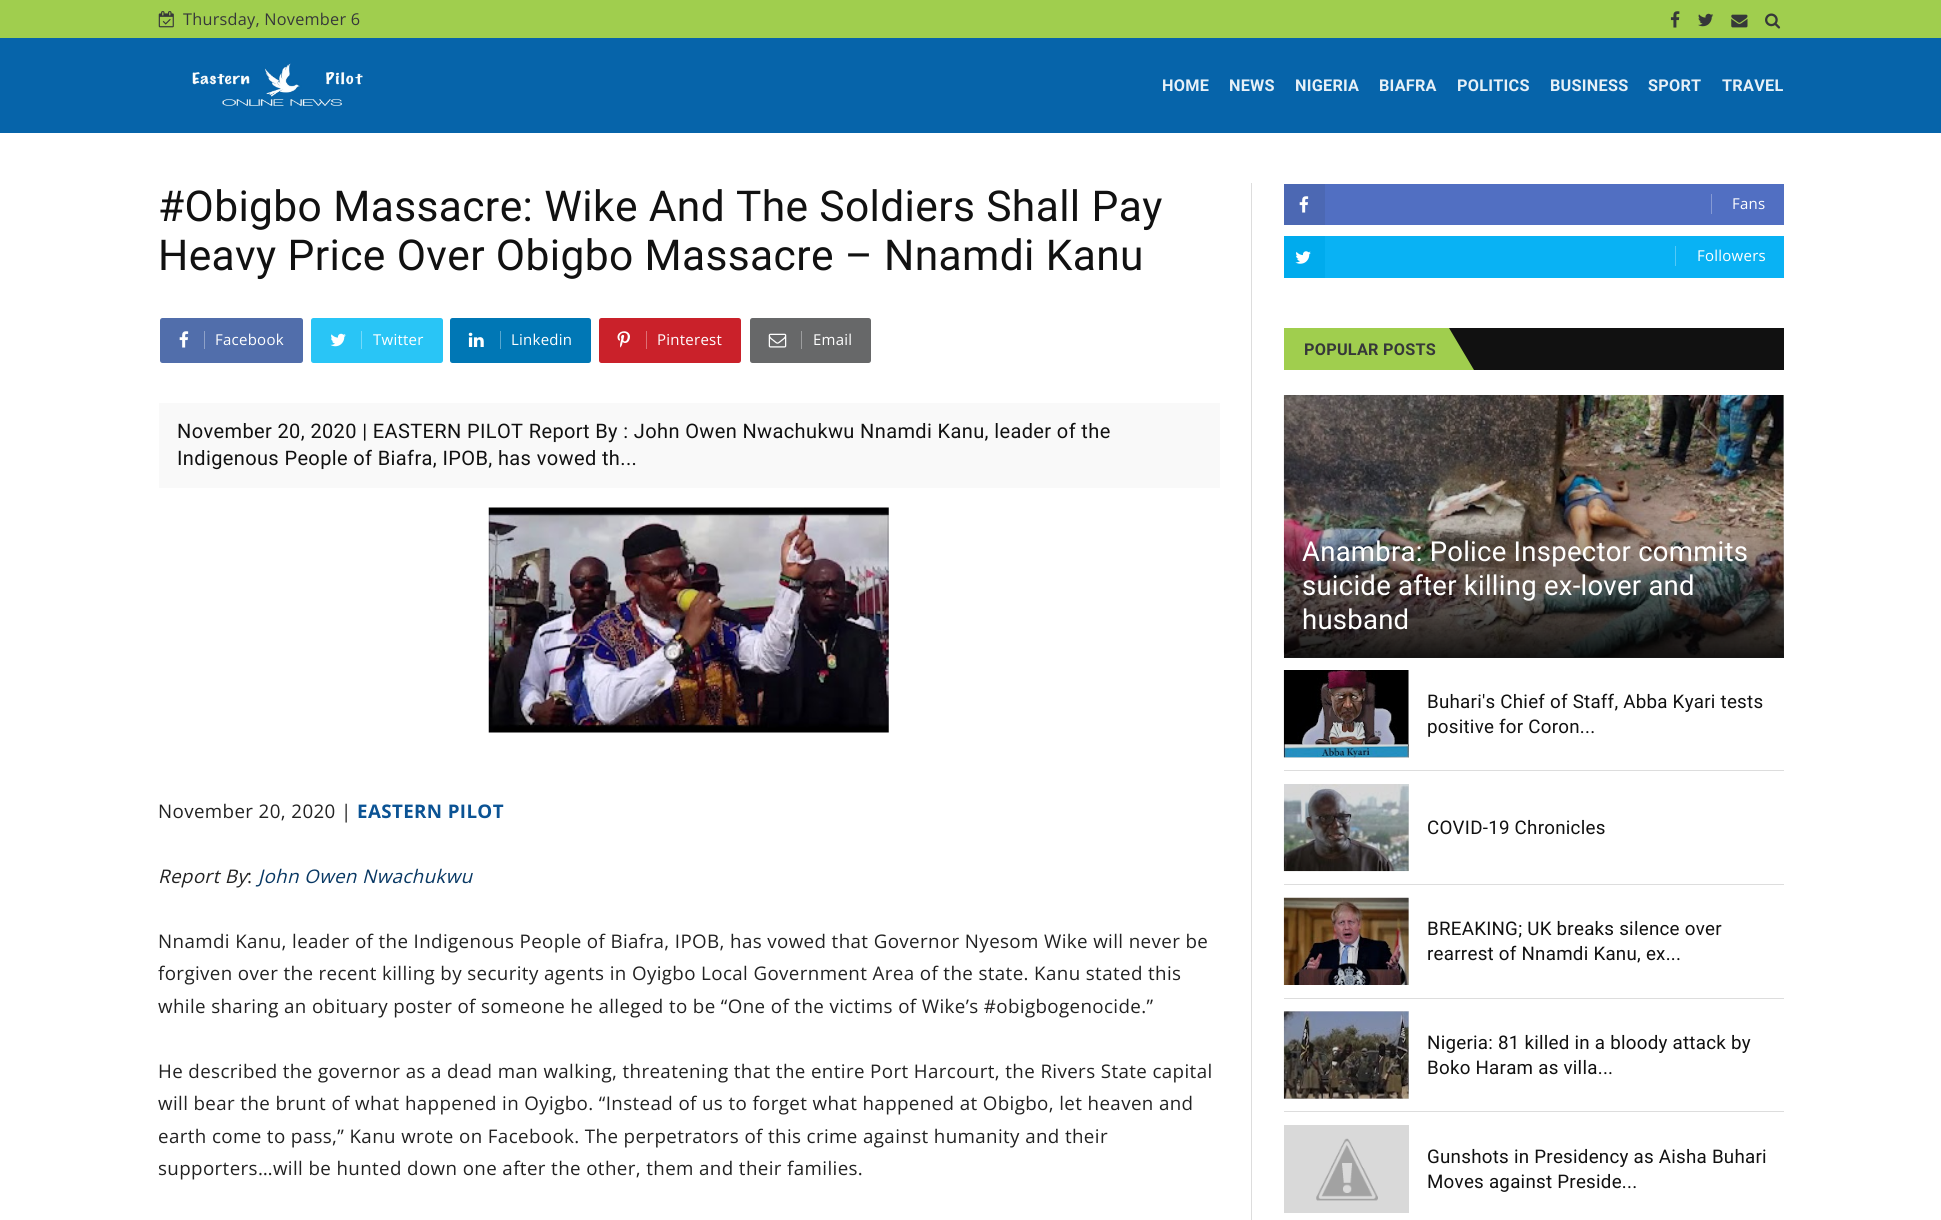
import math
import cairo

surface = cairo.ImageSurface(cairo.Format.RGB24, 1941, 1220)
ctx = cairo.Context(surface)
options = cairo.FontOptions()
options.set_hint_metrics(cairo.HintMetrics.OFF)
options.set_hint_style(cairo.HintStyle.NONE)
ctx.set_font_options(options)
ctx.set_miter_limit(4)


def ink(r, g, b):
    ctx.set_source_rgb(r / 255, g / 255, b / 255)


def write_spaced(x, y, s, letter, word):
    ctx.move_to(x, y)
    for ch in s:
        ctx.show_text(ch)
        ctx.rel_move_to(letter + word * (ch == ' '), 0)


def block(x, y, w, h, *color):
    ink(*color)
    ctx.rectangle(x, y, w, h)
    ctx.fill()


def round_path(x, y, w, h, r):
    ctx.new_sub_path()
    for i, (u, v) in enumerate([(x + w - r, y + h - r), (x + r, y + h - r), (x + r, y + r), (x + w - r, y + r)]):
        ctx.arc(u, v, r, i * math.pi / 2, (i + 1) * math.pi / 2)
    ctx.close_path()


def paste(path, x, y, w, h):
    ctx.save()
    ctx.set_source_surface(cairo.ImageSurface.create_from_png(path), x, y)
    ctx.rectangle(x, y, w, h)
    ctx.fill()
    ctx.restore()


ink(255, 255, 255)
ctx.paint()
block(1284, 1125, 125, 88, 217, 217, 217)
block(1284, 1011, 125, 88, 217, 217, 217)
block(1408, 898, 1, 87, 217, 217, 217)
block(1408, 784, 1, 87, 217, 217, 217)
block(1284, 670, 125, 88, 217, 217, 217)
block(1284, 395, 500, 263, 217, 217, 217)
block(0, 38, 1941, 95, 6, 100, 170)
block(0, 0, 1941, 38, 160, 206, 78)
paste("pic1.png", 158, 11, 16, 17)
ctx.select_font_face("Open Sans")
ctx.set_font_size(16.25)
ink(54, 56, 57)
write_spaced(183, 25, "Thursday, November 6", 0.25, 0)
paste("pic2.png", 1670, 11, 10, 17)
paste("pic3.png", 1698, 13, 16, 14)
paste("pic4.png", 1731, 14, 17, 14)
paste("pic5.png", 1765, 13, 16, 16)
paste("pic6.png", 192, 63, 171, 43)
ctx.select_font_face("Roboto", cairo.FontSlant.NORMAL, cairo.FontWeight.BOLD)
ink(230, 240, 247)
write_spaced(1162, 91, "HOME", 0.25, 0)
write_spaced(1229, 91, "NEWS", 0.25, 0)
write_spaced(1295, 91, "NIGERIA", 0.25, 0)
write_spaced(1379, 91, "BIAFRA", 0.25, 0)
write_spaced(1457, 91, "POLITICS", 0.25, 0)
write_spaced(1550, 91, "BUSINESS", 0.25, 0)
write_spaced(1648, 91, "SPORT", 0.25, 0)
write_spaced(1722, 91, "TRAVEL", 0.25, 0)
block(1251, 183, 1, 1037, 221, 221, 221)
ctx.select_font_face("Roboto")
ctx.set_font_size(42.5)
ink(17, 17, 17)
write_spaced(158, 221, "#Obigbo Massacre: Wike And The Soldiers Shall Pay", 0.38, 0)
write_spaced(158, 270, "Heavy Price Over Obigbo Massacre – Nnamdi Kanu", 0.38, 0)
ink(81, 110, 171)
round_path(160, 318, 143, 45, 2.5)
ctx.fill()
block(204, 331, 1, 18, 142, 161, 200)
paste("pic7.png", 179, 331, 10, 17)
ctx.select_font_face("Open Sans")
ctx.set_font_size(15)
ink(255, 255, 255)
write_spaced(215, 345, "Facebook", 0.25, 0)
ink(41, 197, 246)
round_path(311, 318, 132, 45, 2.5)
ctx.fill()
block(361, 331, 1, 18, 116, 217, 249)
paste("pic8.png", 330, 333, 16, 14)
ink(255, 255, 255)
write_spaced(373, 345, "Twitter", 0.25, 0)
ink(0, 119, 181)
round_path(450, 318, 141, 45, 2.5)
ctx.fill()
block(500, 331, 1, 18, 89, 167, 207)
paste("pic9.png", 468, 332, 16, 15)
ink(255, 255, 255)
write_spaced(511, 345, "Linkedin", 0.25, 0)
ink(202, 33, 42)
round_path(599, 318, 142, 45, 2.5)
ctx.fill()
block(646, 331, 1, 18, 221, 111, 117)
paste("pic10.png", 617, 331, 13, 17)
ink(255, 255, 255)
write_spaced(657, 345, "Pinterest", 0.25, 0)
ink(103, 104, 105)
round_path(750, 318, 121, 45, 2.5)
ctx.fill()
block(801, 331, 1, 18, 156, 157, 158)
paste("pic11.png", 768, 333, 19, 15)
ink(255, 255, 255)
write_spaced(813, 345, "Email", 0.25, 0)
block(159, 403, 1061, 85, 249, 249, 249)
ctx.select_font_face("Roboto")
ctx.set_font_size(20)
ink(17, 17, 17)
write_spaced(177, 438, "November 20, 2020 | EASTERN PILOT Report By : John Owen Nwachukwu Nnamdi Kanu, leader of the", 0.38, 0)
write_spaced(177, 465, "Indigenous People of Biafra, IPOB, has vowed th...", 0.38, 0)
paste("pic12.png", 488, 507, 401, 226)
ctx.select_font_face("Open Sans")
ctx.set_font_size(18.75)
ink(34, 34, 34)
write_spaced(158, 818, "November 20, 2020 |", 0.38, 0)
ctx.select_font_face("Open Sans", cairo.FontSlant.NORMAL, cairo.FontWeight.BOLD)
ink(11, 83, 148)
write_spaced(357, 818, "EASTERN PILOT", 0.38, 0)
ctx.select_font_face("Open Sans", cairo.FontSlant.ITALIC)
ink(34, 34, 34)
write_spaced(158, 883, "Report By", 0.38, 0)
ink(7, 55, 99)
write_spaced(258, 883, "John Owen Nwachukwu", 0.38, 0)
ctx.select_font_face("Open Sans")
ink(34, 34, 34)
write_spaced(247, 883, ":", 0.38, 0)
write_spaced(158, 948, "Nnamdi Kanu, leader of the Indigenous People of Biafra, IPOB, has vowed that Governor Nyesom Wike will never be", 0.38, 0)
write_spaced(158, 980, "forgiven over the recent killing by security agents in Oyigbo Local Government Area of the state. Kanu stated this", 0.38, 0)
write_spaced(158, 1013, "while sharing an obituary poster of someone he alleged to be “One of the victims of Wike’s #obigbogenocide.”", 0.38, 0)
write_spaced(158, 1078, "He described the governor as a dead man walking, threatening that the entire Port Harcourt, the Rivers State capital", 0.38, 0)
write_spaced(158, 1110, "will bear the brunt of what happened in Oyigbo. “Instead of us to forget what happened at Obigbo, let heaven and", 0.38, 0)
write_spaced(158, 1143, "earth come to pass,” Kanu wrote on Facebook. The perpetrators of this crime against humanity and their", 0.38, 0)
write_spaced(158, 1175, "supporters…will be hunted down one after the other, them and their families.", 0.38, 0)
block(1325, 184, 459, 41, 81, 111, 194)
block(1284, 184, 41, 41, 76, 104, 179)
paste("pic13.png", 1299, 196, 10, 17)
block(1711, 194, 1, 20, 133, 154, 212)
ctx.set_font_size(15)
ink(255, 255, 255)
write_spaced(1732, 209, "Fans", 0.25, 0)
block(1325, 236, 459, 42, 9, 178, 244)
block(1284, 236, 41, 42, 0, 171, 237)
paste("pic14.png", 1295, 251, 16, 13)
block(1675, 246, 1, 20, 83, 201, 247)
ink(255, 255, 255)
write_spaced(1697, 261, "Followers", 0.25, 0)
block(1284, 328, 165, 42, 160, 206, 78)
ctx.select_font_face("Roboto", cairo.FontSlant.NORMAL, cairo.FontWeight.BOLD)
ctx.set_font_size(16.25)
ink(54, 56, 57)
write_spaced(1304, 355, "POPULAR POSTS", 0.25, 0)
block(1449, 328, 335, 42, 17, 17, 17)
ink(160, 206, 78)
ctx.new_path()
ctx.move_to(1474, 370)
ctx.line_to(1449, 370)
ctx.line_to(1449, 328)
ctx.close_path()
ctx.fill()
paste("pic15.png", 1283, 395, 501, 263)
gradient = cairo.LinearGradient(1534, 658, 1534, 510)
gradient.add_color_stop_rgba(0, 0, 0, 0, 0.9)
gradient.add_color_stop_rgba(1, 0, 0, 0, 0)
ctx.set_source(gradient)
ctx.rectangle(1284, 514, 500, 144)
ctx.fill()
ctx.select_font_face("Roboto")
ctx.set_font_size(27.5)
ink(255, 255, 255)
write_spaced(1302, 561, "Anambra: Police Inspector commits", 0.25, 0)
write_spaced(1302, 595, "suicide after killing ex-lover and", 0.25, 0)
write_spaced(1302, 629, "husband", 0.25, 0)
block(1284, 770, 500, 1, 221, 221, 221)
paste("pic16.png", 1283, 670, 126, 88)
ctx.set_font_size(18.75)
ink(17, 17, 17)
write_spaced(1427, 708, "Buhari's Chief of Staff, Abba Kyari tests", 0.25, 0)
write_spaced(1427, 733, "positive for Coron...", 0.25, 0)
block(1284, 884, 500, 1, 221, 221, 221)
paste("pic17.png", 1283, 784, 126, 88)
ink(17, 17, 17)
write_spaced(1427, 834, "COVID-19 Chronicles", 0.25, 0)
block(1284, 998, 500, 1, 221, 221, 221)
paste("pic18.png", 1283, 897, 126, 88)
ink(17, 17, 17)
write_spaced(1427, 935, "BREAKING; UK breaks silence over", 0.25, 0)
write_spaced(1427, 960, "rearrest of Nnamdi Kanu, ex...", 0.25, 0)
block(1284, 1111, 500, 1, 221, 221, 221)
paste("pic19.png", 1283, 1011, 126, 88)
ink(17, 17, 17)
write_spaced(1427, 1049, "Nigeria: 81 killed in a bloody attack by", 0.25, 0)
write_spaced(1427, 1074, "Boko Haram as villa...", 0.25, 0)
paste("pic20.png", 1316, 1138, 62, 63)
write_spaced(1427, 1163, "Gunshots in Presidency as Aisha Buhari", 0.25, 0)
write_spaced(1427, 1188, "Moves against Preside...", 0.25, 0)
surface.write_to_png("screenshot.png")
